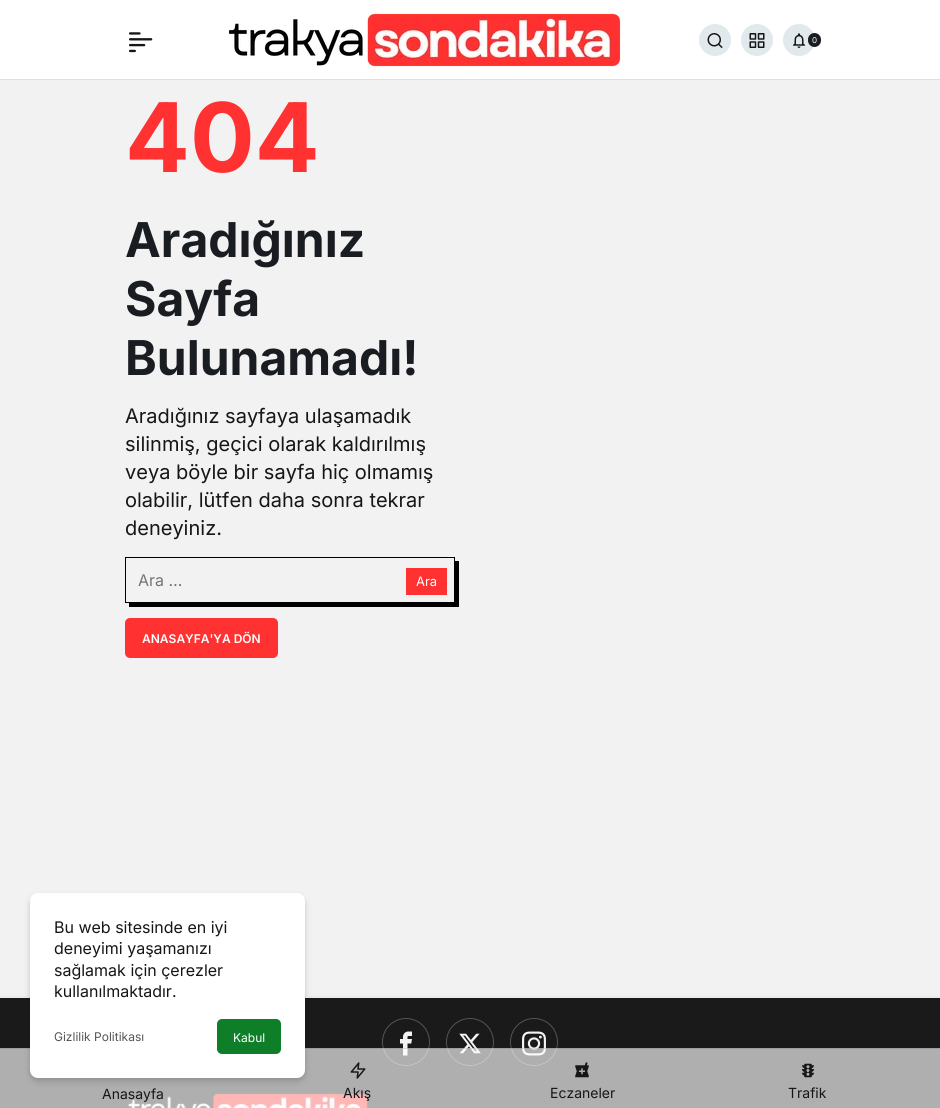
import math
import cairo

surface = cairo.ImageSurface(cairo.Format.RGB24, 940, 1108)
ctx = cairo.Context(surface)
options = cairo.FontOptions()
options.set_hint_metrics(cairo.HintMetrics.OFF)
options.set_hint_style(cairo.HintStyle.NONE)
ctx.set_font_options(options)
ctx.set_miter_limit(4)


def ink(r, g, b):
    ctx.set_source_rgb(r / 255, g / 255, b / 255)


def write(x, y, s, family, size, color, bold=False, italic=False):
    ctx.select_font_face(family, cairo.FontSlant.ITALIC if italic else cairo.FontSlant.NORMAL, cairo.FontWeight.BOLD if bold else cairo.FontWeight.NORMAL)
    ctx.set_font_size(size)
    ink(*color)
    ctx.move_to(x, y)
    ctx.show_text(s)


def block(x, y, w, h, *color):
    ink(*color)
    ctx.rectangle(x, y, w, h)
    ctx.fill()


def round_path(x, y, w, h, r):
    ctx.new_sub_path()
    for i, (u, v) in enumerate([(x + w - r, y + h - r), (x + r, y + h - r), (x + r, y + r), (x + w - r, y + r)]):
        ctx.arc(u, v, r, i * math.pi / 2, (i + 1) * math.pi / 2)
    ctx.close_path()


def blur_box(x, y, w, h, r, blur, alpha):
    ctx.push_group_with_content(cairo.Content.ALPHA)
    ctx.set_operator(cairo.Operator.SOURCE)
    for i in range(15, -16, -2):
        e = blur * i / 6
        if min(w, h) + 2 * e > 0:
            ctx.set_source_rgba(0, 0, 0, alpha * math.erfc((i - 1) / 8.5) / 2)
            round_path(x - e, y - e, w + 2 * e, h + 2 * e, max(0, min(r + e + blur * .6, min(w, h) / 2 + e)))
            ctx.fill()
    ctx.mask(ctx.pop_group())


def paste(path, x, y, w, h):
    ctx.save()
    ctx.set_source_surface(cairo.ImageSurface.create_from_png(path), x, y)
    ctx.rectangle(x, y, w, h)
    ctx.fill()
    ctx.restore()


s1 = dict(family="Inter", size=8, color=(255, 255, 255))
s2 = dict(family="Inter", size=96, color=(255, 49, 49), bold=True)
s3 = dict(family="Inter", size=48, color=(25, 28, 32), bold=True)
s4 = dict(family="Inter", size=20, color=(22, 22, 22))
s5 = dict(family="Inter", size=16, color=(117, 117, 117))
s6 = dict(family="Inter", size=13, color=(255, 255, 255))
s7 = dict(family="Inter SemiBold", size=12, color=(255, 255, 255))
s8 = dict(family="Inter", size=16, color=(22, 22, 22))
s9 = dict(family="Inter", size=12, color=(83, 85, 88))
s10 = dict(family="Inter", size=12, color=(255, 255, 255))
s11 = dict(family="Inter", size=14, color=(22, 22, 22))

ink(242, 242, 243)
ctx.paint()
block(0, 0, 940, 79, 255, 255, 255)
block(0, 79, 940, 1, 222, 223, 226)
paste("pic1.png", 129, 32, 24, 21)
paste("pic2.png", 228, 13, 393, 54)
ink(225, 233, 237)
ctx.arc(715, 40, 16, 0, 2 * math.pi)
ctx.fill()
paste("pic3.png", 707, 33, 16, 15)
ctx.arc(757, 40, 16, 0, 2 * math.pi)
ctx.fill()
paste("pic4.png", 749, 33, 16, 15)
ctx.arc(799, 40, 16, 0, 2 * math.pi)
ctx.fill()
paste("pic5.png", 793, 33, 12, 15)
ink(25, 28, 32)
round_path(808, 33, 13, 14, 6.5)
ctx.fill()
write(812, 43, "0", **s1)
write(125, 172, "404", **s2)
write(125, 257, "Aradığınız", **s3)
write(125, 316, "Sayfa", **s3)
write(125, 375, "Bulunamadı!", **s3)
write(125, 423, "Aradığınız sayfaya ulaşamadık", **s4)
write(125, 451, "silinmiş, geçici olarak kaldırılmış", **s4)
write(125, 479, "veya böyle bir sayfa hiç olmamış", **s4)
write(125, 507, "olabilir, lütfen daha sonra tekrar", **s4)
write(125, 535, "deneyiniz.", **s4)
ink(0, 0, 0)
ctx.new_path()
ctx.move_to(129, 603)
ctx.line_to(129, 607)
ctx.line_to(459, 607)
ctx.line_to(459, 561)
ctx.line_to(455, 561)
ctx.line_to(455, 603)
ctx.close_path()
ctx.fill()
ctx.rectangle(125.5, 557.5, 329, 45)
ctx.set_line_width(1)
ctx.stroke()
write(138, 586, "Ara …", **s5)
block(406, 568, 41, 27, 255, 49, 49)
write(416, 586, "Ara", **s6)
ink(255, 49, 49)
round_path(125, 618, 153, 40, 5)
ctx.fill()
write(142, 643, "ANASAYFA'YA DÖN", **s7)
ink(50, 53, 61)
blur_box(0, 998, 940, 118, 0, 2.5, 0.1)
block(0, 998, 940, 110, 26, 26, 26)
ctx.arc(406, 1042, 23.5, 0, 2 * math.pi)
ink(83, 83, 83)
ctx.stroke()
paste("pic6.png", 400, 1031, 12, 25)
ctx.arc(470, 1042, 23.5, 0, 2 * math.pi)
ctx.stroke()
paste("pic7.png", 459, 1033, 22, 21)
ctx.arc(534, 1042, 23.5, 0, 2 * math.pi)
ctx.stroke()
paste("pic8.png", 522, 1031, 24, 25)
paste("pic9.png", 128, 1093, 240, 15)
ctx.set_source_rgba(1, 1, 1, 0.65)
ctx.rectangle(0, 1048, 940, 60)
ctx.fill()
ctx.set_source_rgba(0.357, 0.38, 0.431, 0.2)
ctx.rectangle(0, 1048, 940, 1)
ctx.fill()
ink(0, 0, 0)
blur_box(30, 895, 275, 185, 8, 2, 0.08)
blur_box(30, 897, 275, 185, 8, 4, 0.12)
ink(255, 255, 255)
round_path(30, 893, 275, 185, 8)
ctx.fill()
write(54, 933, "Bu web sitesinde en iyi", **s8)
write(54, 954, "deneyimi yaşamanızı", **s8)
write(54, 976, "sağlamak için çerezler", **s8)
write(54, 997, "kullanılmaktadır.", **s8)
write(54, 1041, "Gizlilik Politikası", **s9)
ink(15, 126, 41)
round_path(217, 1019, 64, 35, 5)
ctx.fill()
write(233, 1042, "Kabul", **s10)
write(102, 1099, "Anasayfa", **s11)
paste("pic10.png", 350, 1062, 16, 17)
write(343, 1098, "Akış", **s11)
paste("pic11.png", 575, 1062, 14, 16)
write(550, 1098, "Eczaneler", **s11)
paste("pic12.png", 802, 1063, 12, 15)
write(788, 1098, "Trafik", **s11)
surface.write_to_png("screenshot.png")
